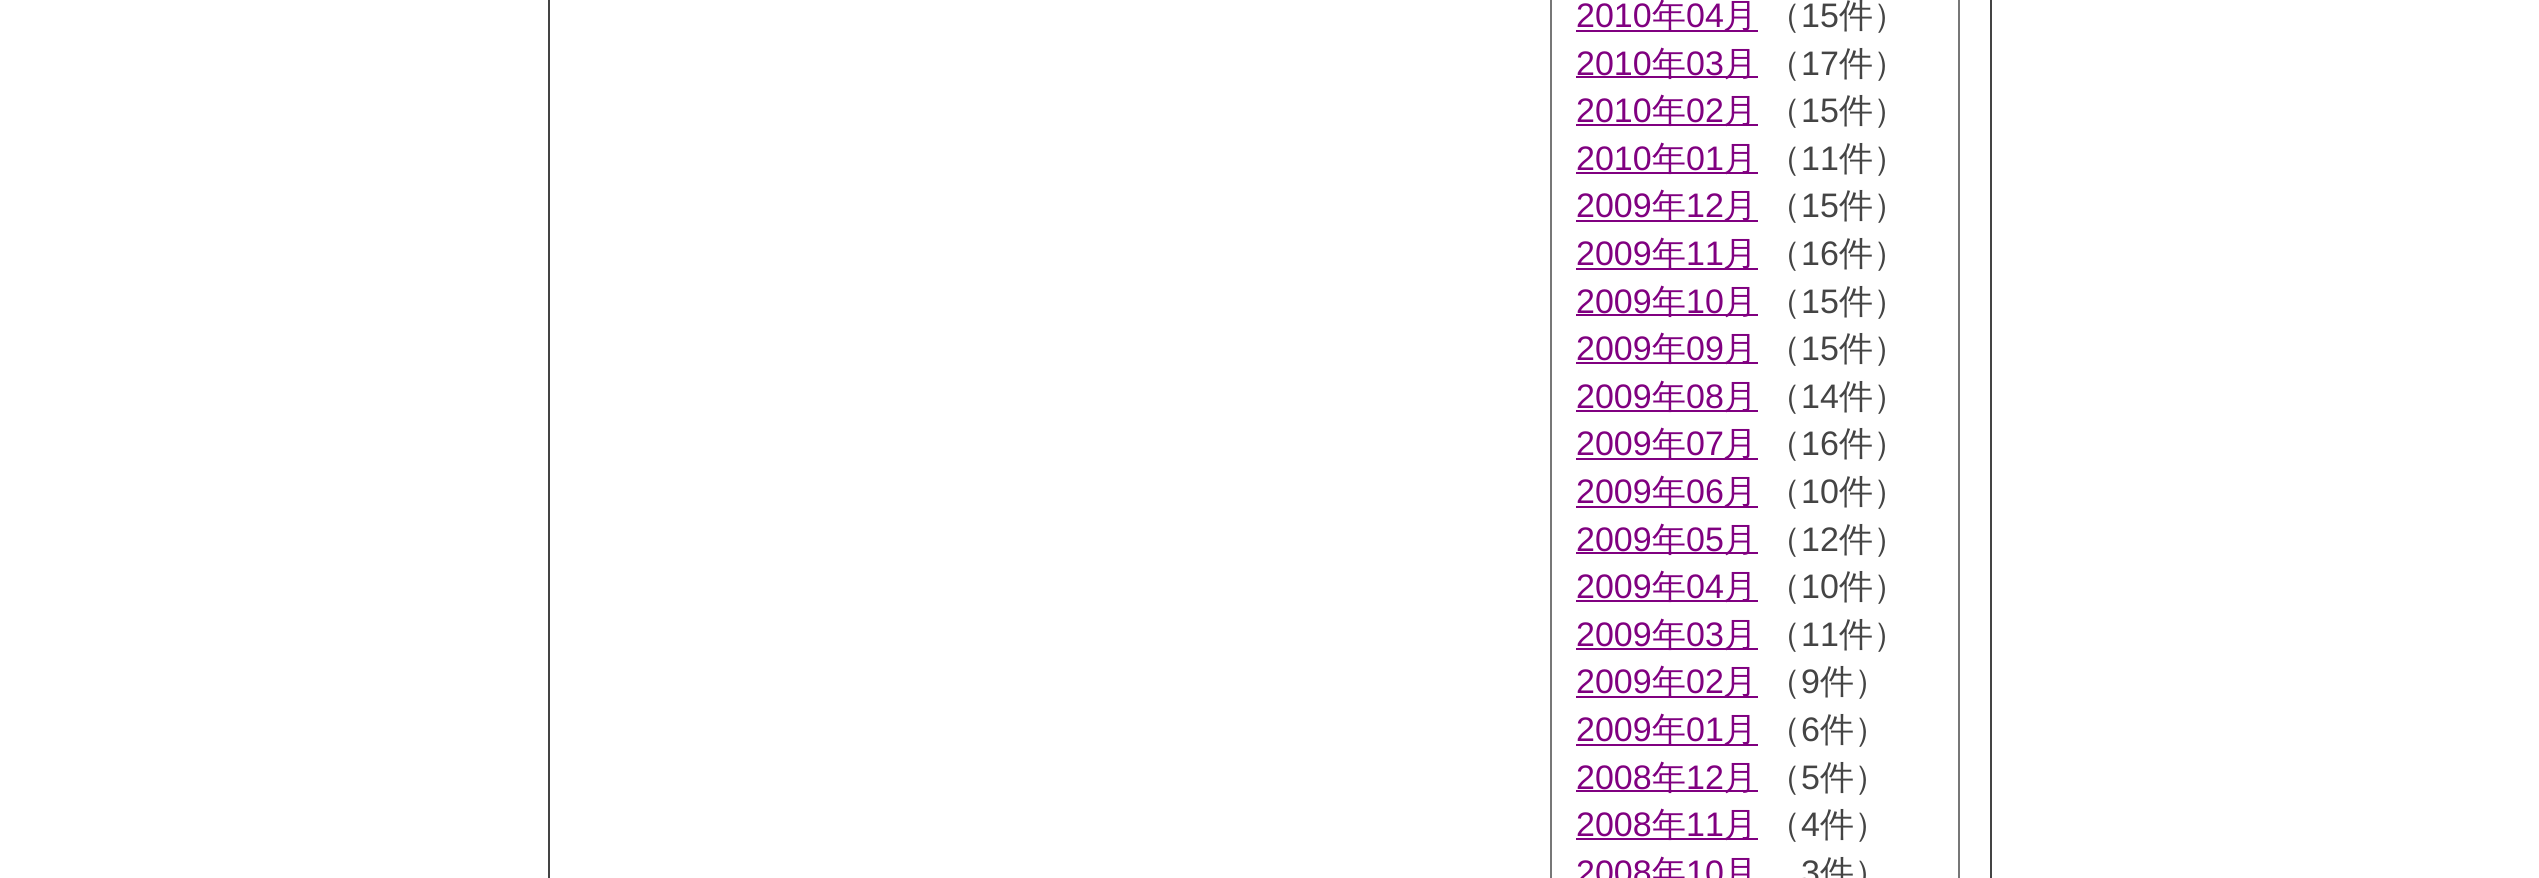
import math
import cairo

surface = cairo.ImageSurface(cairo.Format.RGB24, 2539, 878)
ctx = cairo.Context(surface)
options = cairo.FontOptions()
options.set_hint_metrics(cairo.HintMetrics.OFF)
options.set_hint_style(cairo.HintStyle.NONE)
ctx.set_font_options(options)
ctx.set_miter_limit(4)


def ink(r, g, b):
    ctx.set_source_rgb(r / 255, g / 255, b / 255)


def write(x, y, s, family, size, color, bold=False, italic=False):
    ctx.select_font_face(family, cairo.FontSlant.ITALIC if italic else cairo.FontSlant.NORMAL, cairo.FontWeight.BOLD if bold else cairo.FontWeight.NORMAL)
    ctx.set_font_size(size)
    ink(*color)
    ctx.move_to(x, y)
    ctx.show_text(s)


def block(x, y, w, h, *color):
    ink(*color)
    ctx.rectangle(x, y, w, h)
    ctx.fill()


s1 = dict(family="Liberation Sans", size=34, color=(128, 0, 128))
s2 = dict(family="WenQuanYi Zen Hei Medium", size=34, color=(128, 0, 128))
s3 = dict(family="WenQuanYi Zen Hei Medium", size=34, color=(68, 68, 68))
s4 = dict(family="Liberation Sans", size=34, color=(68, 68, 68))

ink(255, 255, 255)
ctx.paint()
block(1990, 0, 2, 878, 68, 68, 68)
block(548, 0, 2, 878, 68, 68, 68)
ctx.rectangle(1551, -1, 408, 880)
ink(119, 119, 119)
ctx.stroke()
write(1576, 27, "2010", **s1)
block(1576, 30, 182, 2, 128, 0, 128)
write(1652, 27, "年", **s2)
write(1686, 27, "04", **s1)
write(1723, 27, "月", **s2)
write(1767, 27, "（", **s3)
write(1801, 27, "15", **s4)
write(1839, 27, "件）", **s3)
write(1576, 75, "2010", **s1)
block(1576, 76, 182, 2, 128, 0, 128)
write(1652, 75, "年", **s2)
write(1686, 75, "03", **s1)
write(1723, 75, "月", **s2)
write(1767, 75, "（", **s3)
write(1801, 75, "17", **s4)
write(1839, 75, "件）", **s3)
write(1576, 122, "2010", **s1)
block(1576, 124, 182, 2, 128, 0, 128)
write(1652, 122, "年", **s2)
write(1686, 122, "02", **s1)
write(1723, 122, "月", **s2)
write(1767, 122, "（", **s3)
write(1801, 122, "15", **s4)
write(1839, 122, "件）", **s3)
write(1576, 170, "2010", **s1)
block(1576, 172, 182, 2, 128, 0, 128)
write(1652, 170, "年", **s2)
write(1686, 170, "01", **s1)
write(1723, 170, "月", **s2)
write(1767, 170, "（", **s3)
write(1801, 170, "11", **s4)
write(1839, 170, "件）", **s3)
write(1576, 217, "2009", **s1)
block(1576, 220, 182, 2, 128, 0, 128)
write(1652, 217, "年", **s2)
write(1686, 217, "12", **s1)
write(1723, 217, "月", **s2)
write(1767, 217, "（", **s3)
write(1801, 217, "15", **s4)
write(1839, 217, "件）", **s3)
write(1576, 265, "2009", **s1)
block(1576, 268, 182, 2, 128, 0, 128)
write(1652, 265, "年", **s2)
write(1686, 265, "11", **s1)
write(1723, 265, "月", **s2)
write(1767, 265, "（", **s3)
write(1801, 265, "16", **s4)
write(1839, 265, "件）", **s3)
write(1576, 313, "2009", **s1)
block(1576, 314, 182, 2, 128, 0, 128)
write(1652, 313, "年", **s2)
write(1686, 313, "10", **s1)
write(1723, 313, "月", **s2)
write(1767, 313, "（", **s3)
write(1801, 313, "15", **s4)
write(1839, 313, "件）", **s3)
write(1576, 360, "2009", **s1)
block(1576, 362, 182, 2, 128, 0, 128)
write(1652, 360, "年", **s2)
write(1686, 360, "09", **s1)
write(1723, 360, "月", **s2)
write(1767, 360, "（", **s3)
write(1801, 360, "15", **s4)
write(1839, 360, "件）", **s3)
write(1576, 408, "2009", **s1)
block(1576, 410, 182, 2, 128, 0, 128)
write(1652, 408, "年", **s2)
write(1686, 408, "08", **s1)
write(1723, 408, "月", **s2)
write(1767, 408, "（", **s3)
write(1801, 408, "14", **s4)
write(1839, 408, "件）", **s3)
write(1576, 455, "2009", **s1)
block(1576, 458, 182, 2, 128, 0, 128)
write(1652, 455, "年", **s2)
write(1686, 455, "07", **s1)
write(1723, 455, "月", **s2)
write(1767, 455, "（", **s3)
write(1801, 455, "16", **s4)
write(1839, 455, "件）", **s3)
write(1576, 503, "2009", **s1)
block(1576, 506, 182, 2, 128, 0, 128)
write(1652, 503, "年", **s2)
write(1686, 503, "06", **s1)
write(1723, 503, "月", **s2)
write(1767, 503, "（", **s3)
write(1801, 503, "10", **s4)
write(1839, 503, "件）", **s3)
write(1576, 551, "2009", **s1)
block(1576, 552, 182, 2, 128, 0, 128)
write(1652, 551, "年", **s2)
write(1686, 551, "05", **s1)
write(1723, 551, "月", **s2)
write(1767, 551, "（", **s3)
write(1801, 551, "12", **s4)
write(1839, 551, "件）", **s3)
write(1576, 598, "2009", **s1)
block(1576, 600, 182, 2, 128, 0, 128)
write(1652, 598, "年", **s2)
write(1686, 598, "04", **s1)
write(1723, 598, "月", **s2)
write(1767, 598, "（", **s3)
write(1801, 598, "10", **s4)
write(1839, 598, "件）", **s3)
write(1576, 646, "2009", **s1)
block(1576, 648, 182, 2, 128, 0, 128)
write(1652, 646, "年", **s2)
write(1686, 646, "03", **s1)
write(1723, 646, "月", **s2)
write(1767, 646, "（", **s3)
write(1801, 646, "11", **s4)
write(1839, 646, "件）", **s3)
write(1576, 693, "2009", **s1)
block(1576, 696, 182, 2, 128, 0, 128)
write(1652, 693, "年", **s2)
write(1686, 693, "02", **s1)
write(1723, 693, "月", **s2)
write(1767, 693, "（", **s3)
write(1801, 693, "9", **s4)
write(1820, 693, "件）", **s3)
write(1576, 741, "2009", **s1)
block(1576, 744, 182, 2, 128, 0, 128)
write(1652, 741, "年", **s2)
write(1686, 741, "01", **s1)
write(1723, 741, "月", **s2)
write(1767, 741, "（", **s3)
write(1801, 741, "6", **s4)
write(1820, 741, "件）", **s3)
write(1576, 789, "2008", **s1)
block(1576, 790, 182, 2, 128, 0, 128)
write(1652, 789, "年", **s2)
write(1686, 789, "12", **s1)
write(1723, 789, "月", **s2)
write(1767, 789, "（", **s3)
write(1801, 789, "5", **s4)
write(1820, 789, "件）", **s3)
write(1576, 836, "2008", **s1)
block(1576, 838, 182, 2, 128, 0, 128)
write(1652, 836, "年", **s2)
write(1686, 836, "11", **s1)
write(1723, 836, "月", **s2)
write(1767, 836, "（", **s3)
write(1801, 836, "4", **s4)
write(1820, 836, "件）", **s3)
write(1576, 884, "2008", **s1)
write(1652, 884, "年", **s2)
write(1686, 884, "10", **s1)
write(1723, 884, "月", **s2)
write(1801, 884, "3", **s4)
write(1820, 884, "件）", **s3)
surface.write_to_png("screenshot.png")
